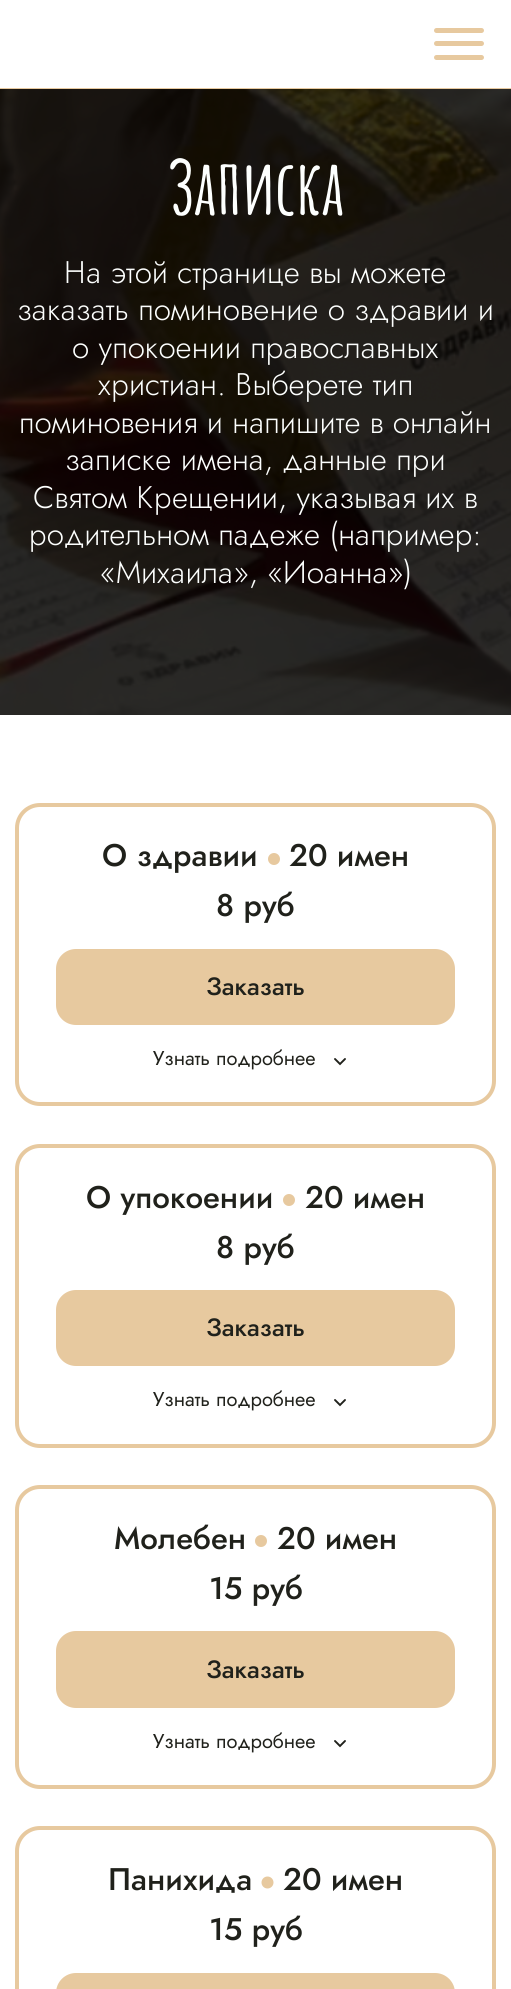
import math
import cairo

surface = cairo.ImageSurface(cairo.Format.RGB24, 511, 1989)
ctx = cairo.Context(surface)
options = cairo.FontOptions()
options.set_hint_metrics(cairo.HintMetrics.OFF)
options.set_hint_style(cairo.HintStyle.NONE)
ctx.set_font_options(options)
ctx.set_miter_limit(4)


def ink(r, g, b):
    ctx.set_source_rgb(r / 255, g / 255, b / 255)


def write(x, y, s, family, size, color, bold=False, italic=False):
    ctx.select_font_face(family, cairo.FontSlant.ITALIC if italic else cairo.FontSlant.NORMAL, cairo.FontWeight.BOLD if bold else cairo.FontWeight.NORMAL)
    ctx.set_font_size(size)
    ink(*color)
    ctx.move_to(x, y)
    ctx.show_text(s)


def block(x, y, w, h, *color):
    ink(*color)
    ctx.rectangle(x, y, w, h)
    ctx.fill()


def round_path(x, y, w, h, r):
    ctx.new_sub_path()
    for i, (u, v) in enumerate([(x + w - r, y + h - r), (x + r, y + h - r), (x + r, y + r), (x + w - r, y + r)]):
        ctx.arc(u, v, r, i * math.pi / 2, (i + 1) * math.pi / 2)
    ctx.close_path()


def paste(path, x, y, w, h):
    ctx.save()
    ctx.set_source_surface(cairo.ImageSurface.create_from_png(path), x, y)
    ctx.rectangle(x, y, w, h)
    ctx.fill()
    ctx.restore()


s1 = dict(family="Amatic SC", size=75, color=(253, 255, 254), bold=True)
s2 = dict(family="Jost Light", size=31.25, color=(253, 255, 254))
s3 = dict(family="Jost Medium", size=31.25, color=(32, 33, 27))
s4 = dict(family="Jost Medium", size=25, color=(32, 33, 27))
s5 = dict(family="Jost", size=20, color=(32, 33, 27))

ink(255, 255, 255)
ctx.paint()
block(0, 88, 511, 1, 231, 201, 159)
round_path(434, 28, 50, 5, 2.5)
ctx.fill()
round_path(434, 41, 50, 5, 2.5)
ctx.fill()
round_path(434, 55, 50, 5, 2.5)
ctx.fill()
paste("pic1.png", 0, 89, 511, 626)
write(168, 215, "Записка", **s1)
write(64, 283, "На этой странице вы можете", **s2)
write(17, 320, "заказать поминовение о здравии и", **s2)
write(72, 358, "о упокоении православных", **s2)
write(98, 395, "христиан. Выберете тип", **s2)
write(19, 433, "поминовения и напишите в онлайн", **s2)
write(65, 470, "записке имена, данные при", **s2)
write(33, 508, "Святом Крещении, указывая их в", **s2)
write(29, 545, "родительном падеже (например:", **s2)
write(100, 583, "«Михаила», «Иоанна»)", **s2)
round_path(17, 805, 477, 299, 23)
ink(231, 201, 159)
ctx.set_line_width(4)
ctx.stroke()
write(102, 866, "О здравии", **s3)
write(289, 866, "20 имен", **s3)
ink(231, 201, 159)
ctx.new_path()
ctx.arc(274, 859, 6, 0, 2 * math.pi)
ctx.fill()
write(216, 916, "8 руб", **s3)
ink(231, 201, 159)
round_path(56, 949, 399, 76, 20)
ctx.fill()
write(206, 995, "Заказать", **s4)
write(153, 1065, "Узнать подробнее", **s5)
ctx.new_path()
ctx.move_to(335, 1059)
ctx.line_to(340, 1064)
ctx.line_to(345, 1059)
ctx.set_line_width(1.9)
ctx.set_line_cap(cairo.LineCap.ROUND)
ctx.stroke()
round_path(17, 1146, 477, 300, 23)
ink(231, 201, 159)
ctx.set_line_width(4)
ctx.set_line_cap(cairo.LineCap.BUTT)
ctx.stroke()
write(86, 1208, "О упокоении", **s3)
write(305, 1208, "20 имен", **s3)
ink(231, 201, 159)
ctx.new_path()
ctx.arc(289, 1200, 6, 0, 2 * math.pi)
ctx.fill()
write(216, 1258, "8 руб", **s3)
ink(231, 201, 159)
round_path(56, 1290, 399, 76, 20)
ctx.fill()
write(206, 1336, "Заказать", **s4)
write(153, 1406, "Узнать подробнее", **s5)
ctx.new_path()
ctx.move_to(335, 1400)
ctx.line_to(340, 1405)
ctx.line_to(345, 1400)
ctx.set_line_width(1.9)
ctx.set_line_cap(cairo.LineCap.ROUND)
ctx.stroke()
round_path(17, 1487, 477, 300, 23)
ink(231, 201, 159)
ctx.set_line_width(4)
ctx.set_line_cap(cairo.LineCap.BUTT)
ctx.stroke()
write(114, 1549, "Молебен", **s3)
write(277, 1549, "20 имен", **s3)
ink(231, 201, 159)
ctx.new_path()
ctx.arc(261, 1541, 6, 0, 2 * math.pi)
ctx.fill()
write(209, 1599, "15 руб", **s3)
ink(231, 201, 159)
round_path(56, 1631, 399, 77, 20)
ctx.fill()
write(206, 1678, "Заказать", **s4)
write(153, 1748, "Узнать подробнее", **s5)
ctx.new_path()
ctx.move_to(335, 1741)
ctx.line_to(340, 1746)
ctx.line_to(345, 1741)
ctx.set_line_width(1.9)
ctx.set_line_cap(cairo.LineCap.ROUND)
ctx.stroke()
round_path(17, 1828, 477, 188, 23)
ink(231, 201, 159)
ctx.set_line_width(4)
ctx.set_line_cap(cairo.LineCap.BUTT)
ctx.stroke()
write(108, 1890, "Панихида", **s3)
write(283, 1890, "20 имен", **s3)
ink(231, 201, 159)
ctx.new_path()
ctx.arc(267.5, 1882.5, 6, 0, 2 * math.pi)
ctx.fill()
write(209, 1940, "15 руб", **s3)
ink(231, 201, 159)
round_path(56, 1973, 399, 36, 20)
ctx.fill()
surface.write_to_png("screenshot.png")
